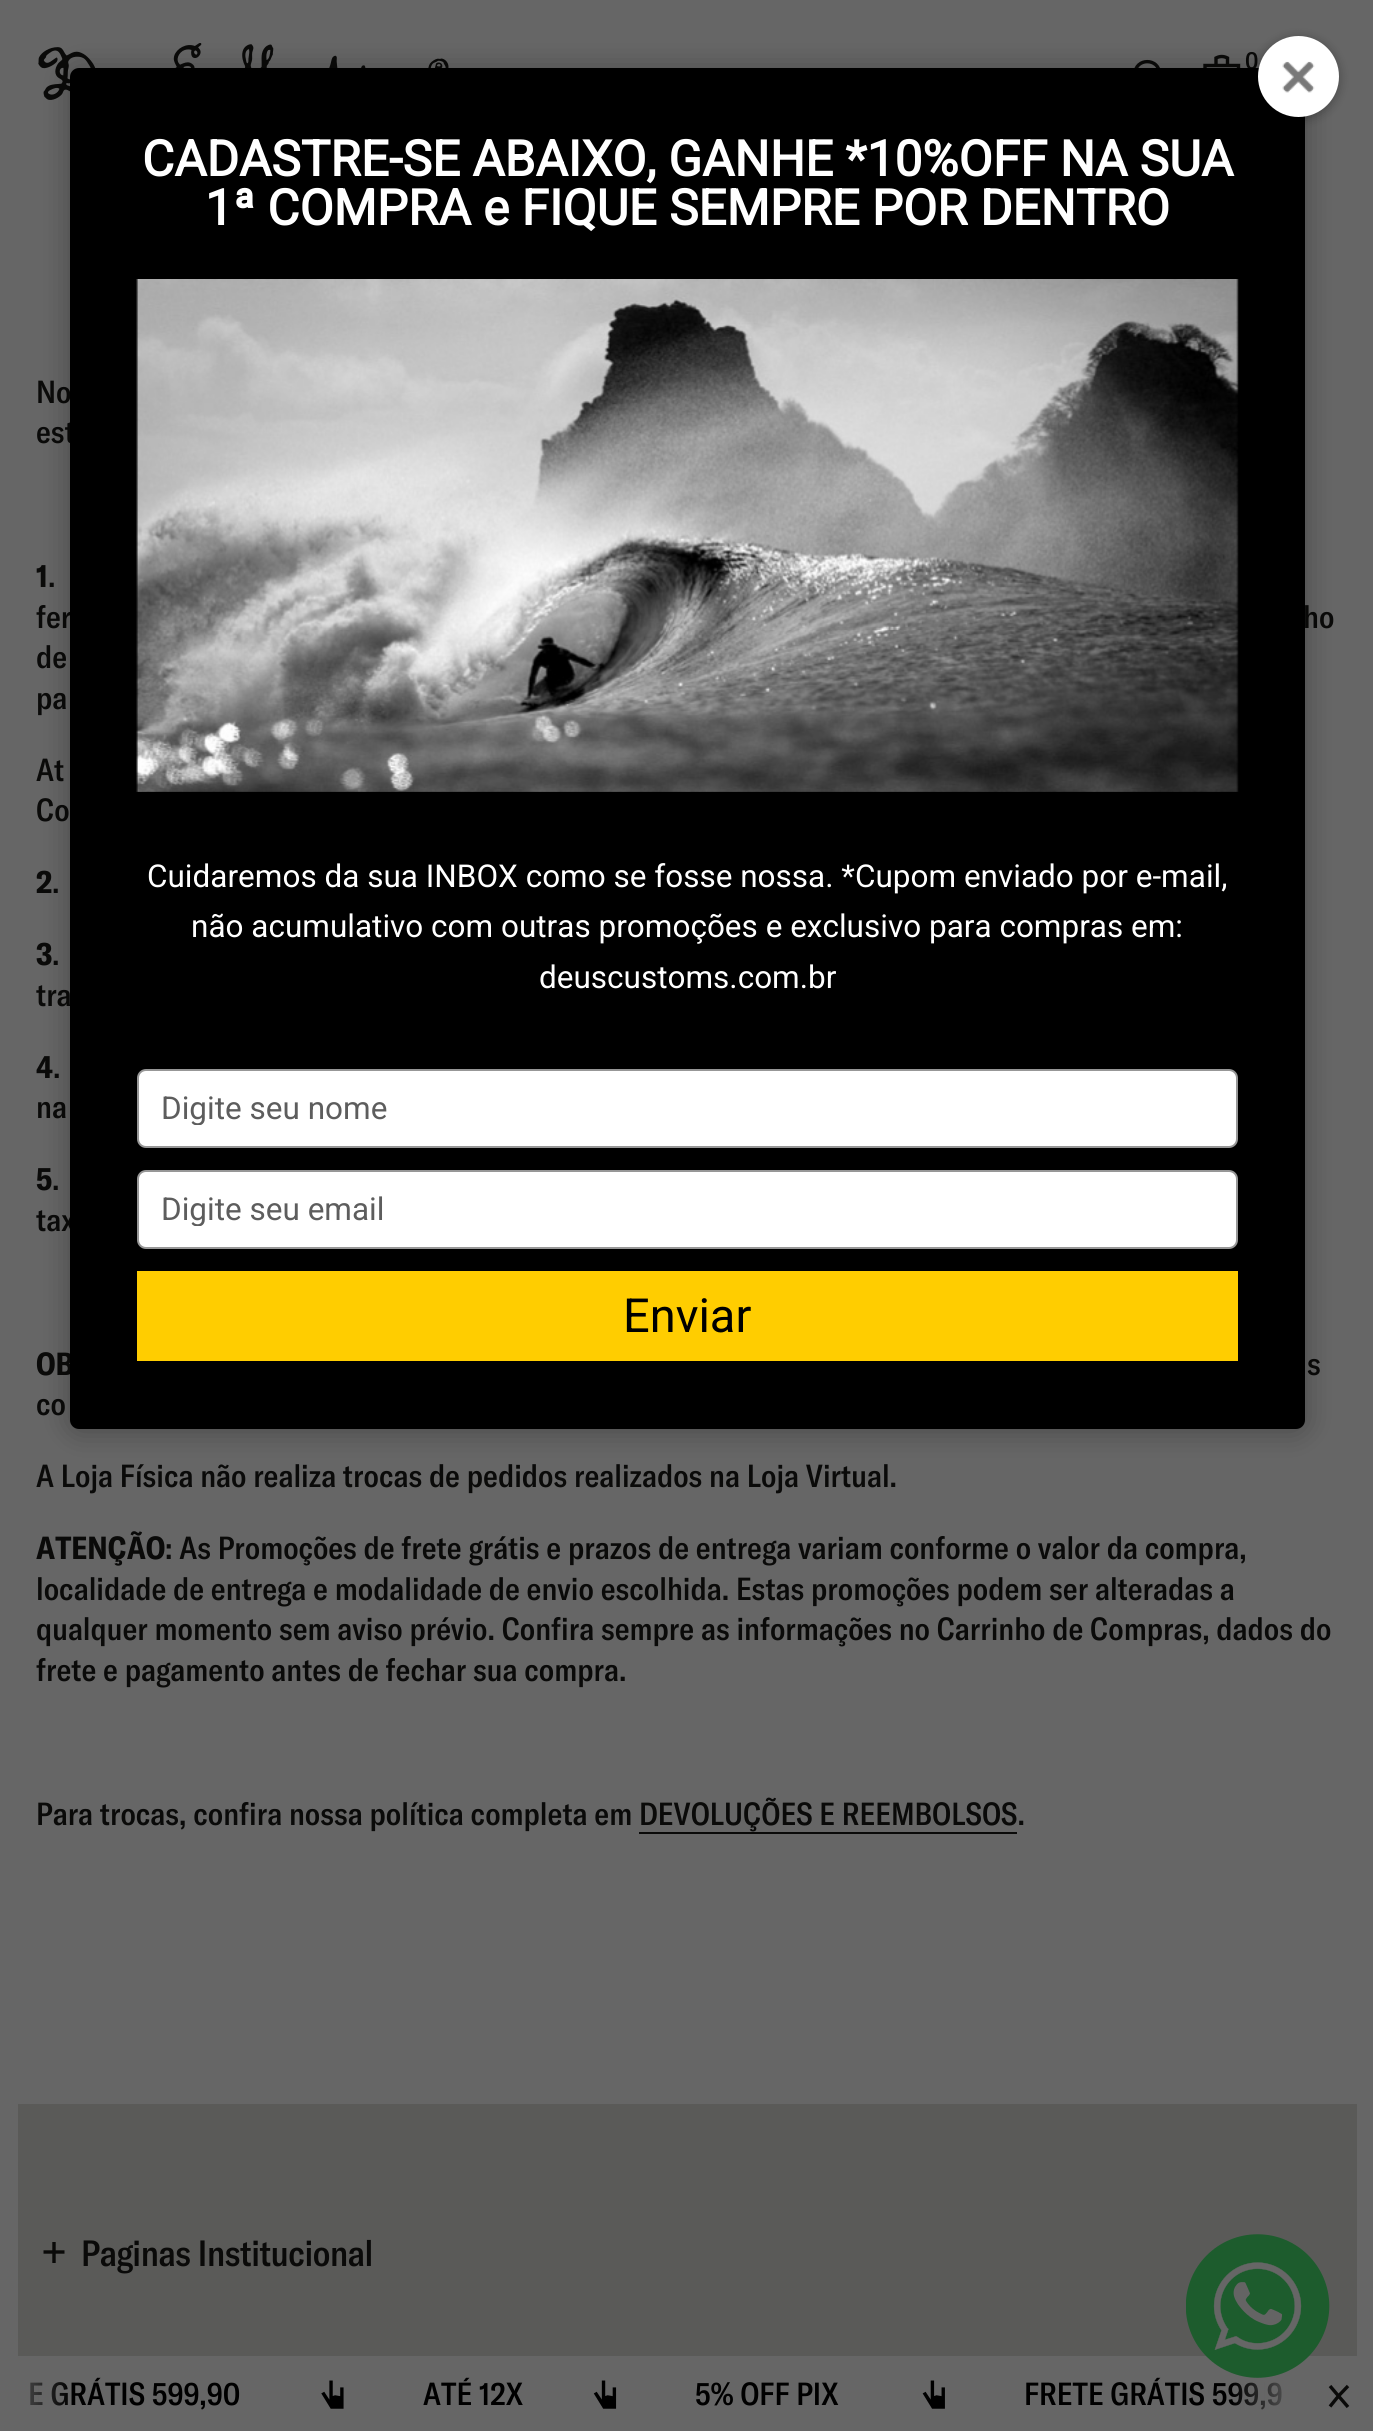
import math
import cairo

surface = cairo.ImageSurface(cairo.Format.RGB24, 1373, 2431)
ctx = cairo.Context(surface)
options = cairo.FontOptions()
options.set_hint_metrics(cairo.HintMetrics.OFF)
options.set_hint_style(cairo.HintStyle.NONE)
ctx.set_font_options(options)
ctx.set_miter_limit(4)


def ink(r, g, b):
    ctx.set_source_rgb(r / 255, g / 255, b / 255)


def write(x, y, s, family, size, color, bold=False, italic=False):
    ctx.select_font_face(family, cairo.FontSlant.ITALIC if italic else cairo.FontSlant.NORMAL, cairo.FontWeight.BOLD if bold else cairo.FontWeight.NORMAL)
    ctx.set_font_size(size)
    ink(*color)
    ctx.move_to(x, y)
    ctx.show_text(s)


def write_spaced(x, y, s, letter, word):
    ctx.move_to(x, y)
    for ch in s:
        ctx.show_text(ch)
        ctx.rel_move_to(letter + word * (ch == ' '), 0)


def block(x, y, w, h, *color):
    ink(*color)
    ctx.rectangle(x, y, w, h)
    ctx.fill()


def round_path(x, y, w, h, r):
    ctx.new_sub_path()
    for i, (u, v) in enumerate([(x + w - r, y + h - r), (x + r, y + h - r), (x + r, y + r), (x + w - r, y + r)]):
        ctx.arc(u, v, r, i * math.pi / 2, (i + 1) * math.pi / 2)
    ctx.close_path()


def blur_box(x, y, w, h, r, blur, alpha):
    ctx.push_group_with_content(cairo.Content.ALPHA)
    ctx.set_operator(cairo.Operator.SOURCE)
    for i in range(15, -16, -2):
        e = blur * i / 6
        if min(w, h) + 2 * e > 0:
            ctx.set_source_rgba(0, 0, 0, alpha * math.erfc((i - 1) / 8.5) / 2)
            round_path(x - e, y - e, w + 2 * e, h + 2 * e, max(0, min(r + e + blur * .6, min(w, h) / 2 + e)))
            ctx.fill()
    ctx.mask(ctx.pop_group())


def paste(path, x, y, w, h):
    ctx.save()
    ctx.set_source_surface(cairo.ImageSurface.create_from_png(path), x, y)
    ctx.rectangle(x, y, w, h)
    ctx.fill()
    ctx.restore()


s1 = dict(family="GT America Medium", size=24, color=(10, 10, 9))
s2 = dict(family="GT America Medium", size=31.5, color=(10, 10, 9))
s3 = dict(family="GT America", size=31.5, color=(10, 10, 9), bold=True)
s4 = dict(family="GT America Medium", size=31.5, color=(0, 0, 0))
s5 = dict(family="Roboto", size=49.5, color=(255, 255, 255), bold=True)
s6 = dict(family="Roboto", size=31.5, color=(255, 255, 255))
s7 = dict(family="Roboto", size=31.5, color=(93, 93, 93))
s8 = dict(family="Roboto", size=47, color=(0, 0, 0))

ink(102, 102, 102)
ctx.paint()
paste("pic1.png", 38, 43, 411, 57)
ctx.new_path()
ctx.move_to(1165, 91.5)
ctx.line_to(1156.5, 83.5)
ctx.move_to(1159.5, 74)
ctx.curve_to(1159.5, 90, 1135, 90, 1135, 74)
ctx.curve_to(1135, 57.5, 1159.5, 57.5, 1159.5, 74)
ctx.close_path()
ink(10, 10, 9)
ctx.set_line_width(3.4)
ctx.set_line_cap(cairo.LineCap.SQUARE)
ctx.stroke()
ctx.new_path()
ctx.move_to(1205, 89)
ctx.line_to(1205, 65.5)
ctx.line_to(1238.5, 65.5)
ctx.line_to(1238.5, 89)
ctx.close_path()
ctx.move_to(1216, 64.5)
ctx.line_to(1216, 58)
ctx.curve_to(1220, 56, 1223.5, 56, 1227.5, 58)
ctx.line_to(1227.5, 64.5)
ctx.set_line_cap(cairo.LineCap.BUTT)
ctx.stroke()
write(1245, 69, "0", **s1)
write(36, 403, "No", **s2)
write(36, 443, "est", **s2)
write(36, 587, "1", **s3)
write(48, 587, ".", **s2)
write(36, 628, "fer", **s2)
write(1303, 628, "ho", **s2)
write(36, 668, "de", **s2)
write(36, 709, "pa", **s2)
write(36, 781, "At", **s2)
write(36, 821, "Co", **s2)
write(36, 893, "2", **s3)
write(52, 893, ".", **s2)
write(36, 965, "3", **s3)
write(52, 965, ".", **s2)
write(36, 1006, "tra", **s2)
write(36, 1078, "4", **s3)
write(53, 1078, ".", **s2)
write(36, 1118, "na", **s2)
write(36, 1190, "5", **s3)
write(52, 1190, ".", **s2)
write(36, 1231, "tax", **s2)
write(36, 1375, "OB", **s3)
write(1307, 1375, "s", **s2)
write(36, 1415, "co", **s2)
write(36, 1487, "A Loja Física não realiza trocas de pedidos realizados na Loja Virtual.", **s2)
write(36, 1559, "ATENÇÃO", **s3)
write(165, 1559, ": As Promoções de frete grátis e prazos de entrega variam conforme o valor da compra,", **s2)
write(36, 1600, "localidade de entrega e modalidade de envio escolhida. Estas promoções podem ser alteradas a", **s2)
write(36, 1640, "qualquer momento sem aviso prévio. Confira sempre as informações no Carrinho de Compras, dados do", **s2)
write(36, 1681, "frete e pagamento antes de fechar sua compra.", **s2)
write(36, 1825, "Para trocas, confira nossa política completa em DEVOLUÇÕES E REEMBOLSOS.", **s2)
block(639, 1832, 378, 2, 10, 10, 9)
block(18, 2104, 1339, 252, 90, 90, 88)
ctx.new_path()
ctx.move_to(54, 2242)
ctx.line_to(54, 2263)
ctx.move_to(43.5, 2252)
ctx.line_to(64.5, 2252)
ink(10, 10, 9)
ctx.stroke()
ctx.set_font_size(36)
write_spaced(81, 2266, "Paginas Institucional", -0.4, 0)
write(28, 2405, "E GRÁTIS 599,90", **s4)
paste("pic2.png", 321, 2380, 23, 29)
write(423, 2405, "ATÉ 12X", **s4)
paste("pic3.png", 593, 2380, 24, 29)
write(695, 2405, "5% OFF PIX", **s4)
paste("pic4.png", 922, 2380, 23, 29)
write(1024, 2405, "FRETE GRÁTIS 599,9", **s4)
gradient = cairo.LinearGradient(0, 2394, 72, 2394)
gradient.add_color_stop_rgba(0, 0.4, 0.4, 0.4, 1)
gradient.add_color_stop_rgba(1, 0.4, 0.4, 0.4, 0)
ctx.set_source(gradient)
ctx.rectangle(29, 2382, 38, 24)
ctx.fill()
gradient = cairo.LinearGradient(1303, 2394, 1231, 2394)
gradient.add_color_stop_rgba(0, 0.4, 0.4, 0.4, 1)
gradient.add_color_stop_rgba(1, 0.4, 0.4, 0.4, 0)
ctx.set_source(gradient)
ctx.rectangle(1233, 2382, 49, 28)
ctx.fill()
ctx.new_path()
ctx.move_to(1348, 2407)
ctx.line_to(1338.5, 2396)
ctx.move_to(1338.5, 2396)
ctx.line_to(1330, 2386)
ctx.move_to(1338.5, 2396)
ctx.line_to(1348, 2386)
ctx.move_to(1338.5, 2396)
ctx.line_to(1330, 2406.5)
ink(10, 10, 9)
ctx.stroke()
ink(0, 0, 0)
blur_box(70, 70, 1235, 1361, 9, 14.5, 0.3)
ink(0, 0, 0)
round_path(70, 68, 1235, 1361, 9)
ctx.fill()
ink(0, 0, 0)
blur_box(1258, 38, 81, 81, 40.5, 5.5, 0.3)
ink(255, 255, 255)
ctx.arc(1298.5, 76.5, 40.5, 0, 2 * math.pi)
ctx.fill()
paste("pic5.png", 1282, 61, 33, 32)
write(142, 176, "CADASTRE-SE ABAIXO, GANHE *10%OFF NA SUA", **s5)
write(205, 225, "1ª COMPRA e FIQUE SEMPRE POR DENTRO", **s5)
paste("pic6.png", 136, 279, 1103, 513)
write(147, 887, "Cuidaremos da sua INBOX como se fosse nossa. *Cupom enviado por e-mail,", **s6)
write(191, 937, "não acumulativo com outras promoções e exclusivo para compras em:", **s6)
write(539, 988, "deuscustoms.com.br", **s6)
round_path(138, 1070, 1099, 77, 8)
ctx.fill_preserve()
ink(151, 151, 151)
ctx.set_line_width(2)
ctx.stroke()
ctx.save()
ctx.rectangle(162, 1089, 1051, 36)
ctx.clip()
write(161, 1119, "Digite seu nome", **s7)
ctx.restore()
ink(255, 255, 255)
round_path(138, 1171, 1099, 77, 8)
ctx.fill_preserve()
ink(151, 151, 151)
ctx.stroke()
ctx.save()
ctx.rectangle(162, 1190, 1051, 36)
ctx.clip()
write(161, 1220, "Digite seu email", **s7)
ctx.restore()
block(137, 1271, 1101, 90, 255, 205, 0)
write(623, 1332, "Enviar", **s8)
paste("pic7.png", 1186, 2234, 144, 144)
surface.write_to_png("screenshot.png")
